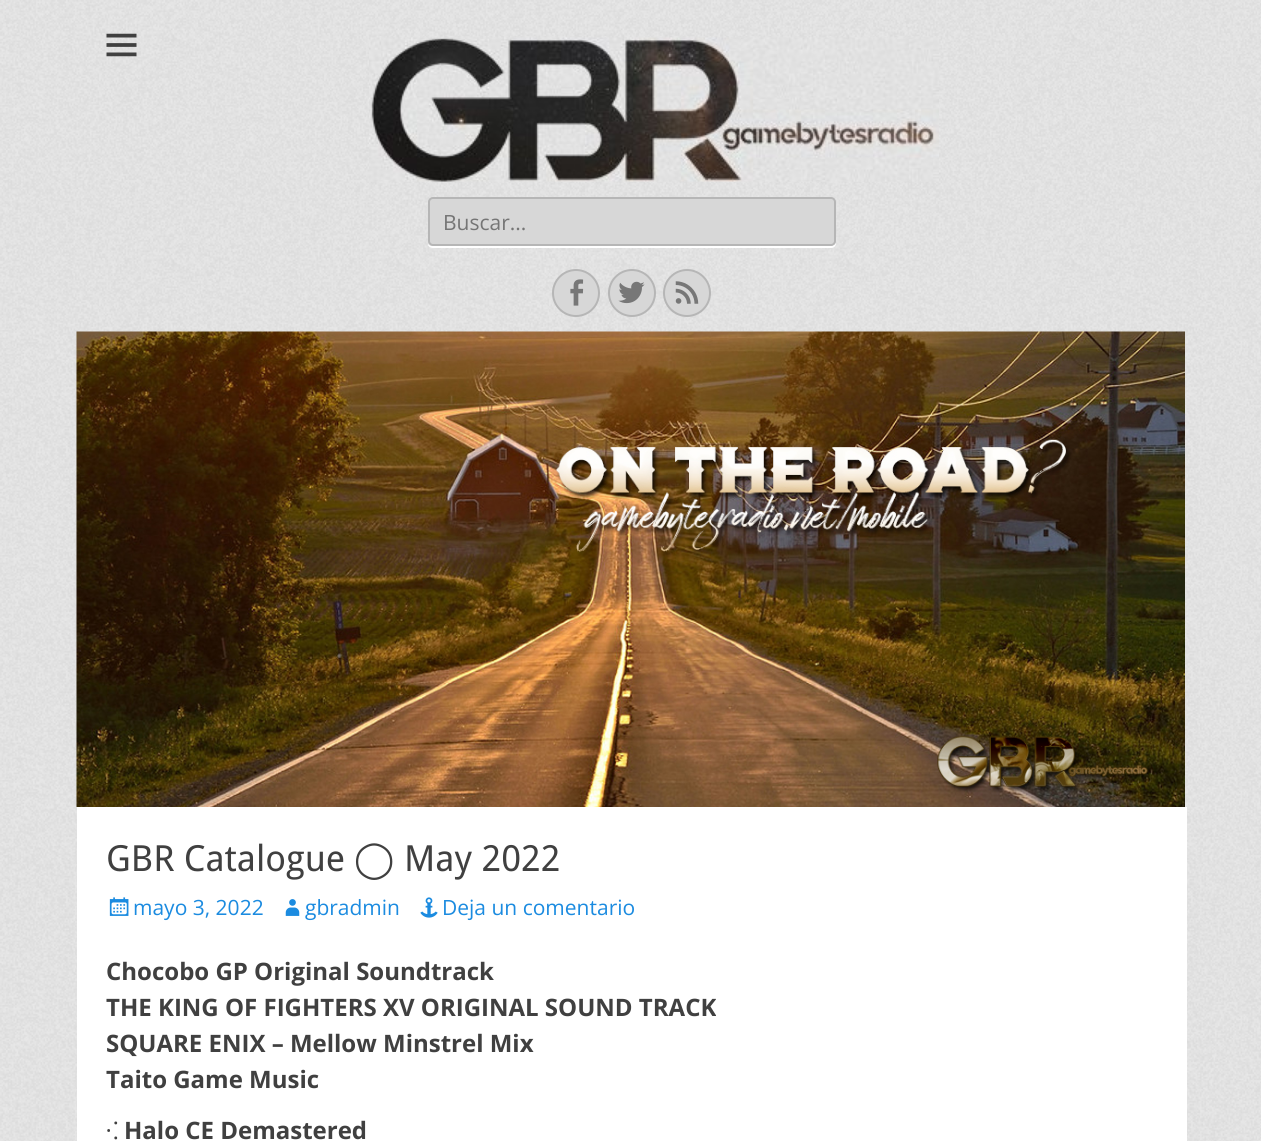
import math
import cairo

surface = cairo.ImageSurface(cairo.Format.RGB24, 1261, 1141)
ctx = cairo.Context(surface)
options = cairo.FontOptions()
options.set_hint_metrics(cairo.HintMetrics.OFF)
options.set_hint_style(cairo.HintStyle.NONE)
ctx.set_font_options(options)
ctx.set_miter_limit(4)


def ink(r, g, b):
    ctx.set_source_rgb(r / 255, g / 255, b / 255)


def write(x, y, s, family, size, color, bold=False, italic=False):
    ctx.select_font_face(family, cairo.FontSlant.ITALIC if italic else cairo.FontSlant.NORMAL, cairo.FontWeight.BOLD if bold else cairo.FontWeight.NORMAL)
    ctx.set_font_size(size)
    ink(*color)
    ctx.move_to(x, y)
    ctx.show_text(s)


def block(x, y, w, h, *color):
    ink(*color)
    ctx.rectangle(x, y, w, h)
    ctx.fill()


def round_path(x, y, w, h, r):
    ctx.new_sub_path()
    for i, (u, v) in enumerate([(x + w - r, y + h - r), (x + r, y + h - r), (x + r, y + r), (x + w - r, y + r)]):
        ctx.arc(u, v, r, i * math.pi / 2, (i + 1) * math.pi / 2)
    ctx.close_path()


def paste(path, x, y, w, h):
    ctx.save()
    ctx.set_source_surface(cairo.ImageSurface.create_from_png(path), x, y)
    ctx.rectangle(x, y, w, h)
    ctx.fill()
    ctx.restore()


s1 = dict(family="Open Sans", size=21, color=(117, 117, 117))
s2 = dict(family="Droid Sans", size=36, color=(64, 64, 64))
s3 = dict(family="DejaVu Sans", size=36, color=(64, 64, 64))
s4 = dict(family="Open Sans", size=21, color=(27, 139, 224))
s5 = dict(family="Open Sans", size=24, color=(64, 64, 64), bold=True)
s6 = dict(family="Noto Sans", size=24, color=(64, 64, 64))

ink(255, 255, 255)
ctx.paint()
paste("pic1.png", 0, 0, 1261, 1141)
paste("pic2.png", 106, 33, 31, 24)
paste("pic3.png", 369, 37, 570, 145)
ink(255, 255, 255)
ctx.new_path()
ctx.move_to(428, 244)
ctx.curve_to(428, 246, 430, 248, 433, 248)
ctx.line_to(831, 248)
ctx.curve_to(834, 248, 836, 246, 836, 243)
ctx.line_to(836, 203)
ctx.line_to(835, 201)
ctx.line_to(836, 242)
ctx.curve_to(836, 244, 833, 246, 831, 246)
ctx.line_to(432, 246)
ctx.curve_to(430, 246, 429, 245, 428, 244)
ctx.close_path()
ctx.fill()
ink(215, 215, 215)
round_path(429, 198, 406, 47, 4)
ctx.fill_preserve()
ink(182, 182, 182)
ctx.stroke()
write(443, 230, "Buscar...", **s1)
ink(215, 215, 215)
ctx.new_path()
ctx.arc(576, 293, 23, 0, 2 * math.pi)
ctx.fill_preserve()
ink(182, 182, 182)
ctx.stroke()
paste("pic4.png", 570, 279, 14, 27)
ink(215, 215, 215)
ctx.arc(632, 293, 23, 0, 2 * math.pi)
ctx.fill_preserve()
ink(182, 182, 182)
ctx.stroke()
paste("pic5.png", 618, 281, 27, 23)
ink(215, 215, 215)
ctx.arc(687, 293, 23, 0, 2 * math.pi)
ctx.fill_preserve()
ink(182, 182, 182)
ctx.stroke()
paste("pic6.png", 675, 281, 24, 23)
paste("pic7.png", 76, 331, 1109, 476)
block(77, 807, 1110, 334, 255, 255, 255)
write(106, 871, "GBR Catalogue", **s2)
write(354, 871, "◯", **s3)
write(404, 871, "May 2022", **s2)
paste("pic8.png", 109, 897, 20, 19)
write(133, 915, "mayo 3, 2022", **s4)
paste("pic9.png", 285, 899, 15, 17)
write(305, 915, "gbradmin", **s4)
paste("pic10.png", 420, 897, 18, 21)
write(442, 915, "Deja un comentario", **s4)
write(106, 980, "Chocobo GP Original Soundtrack", **s5)
write(106, 1016, "THE KING OF FIGHTERS XV ORIGINAL SOUND TRACK", **s5)
write(106, 1052, "SQUARE ENIX – Mellow Minstrel Mix", **s5)
write(106, 1088, "Taito Game Music", **s5)
write(106, 1139, "⁖", **s6)
write(124, 1139, "Halo CE Demastered", **s5)
surface.write_to_png("screenshot.png")
